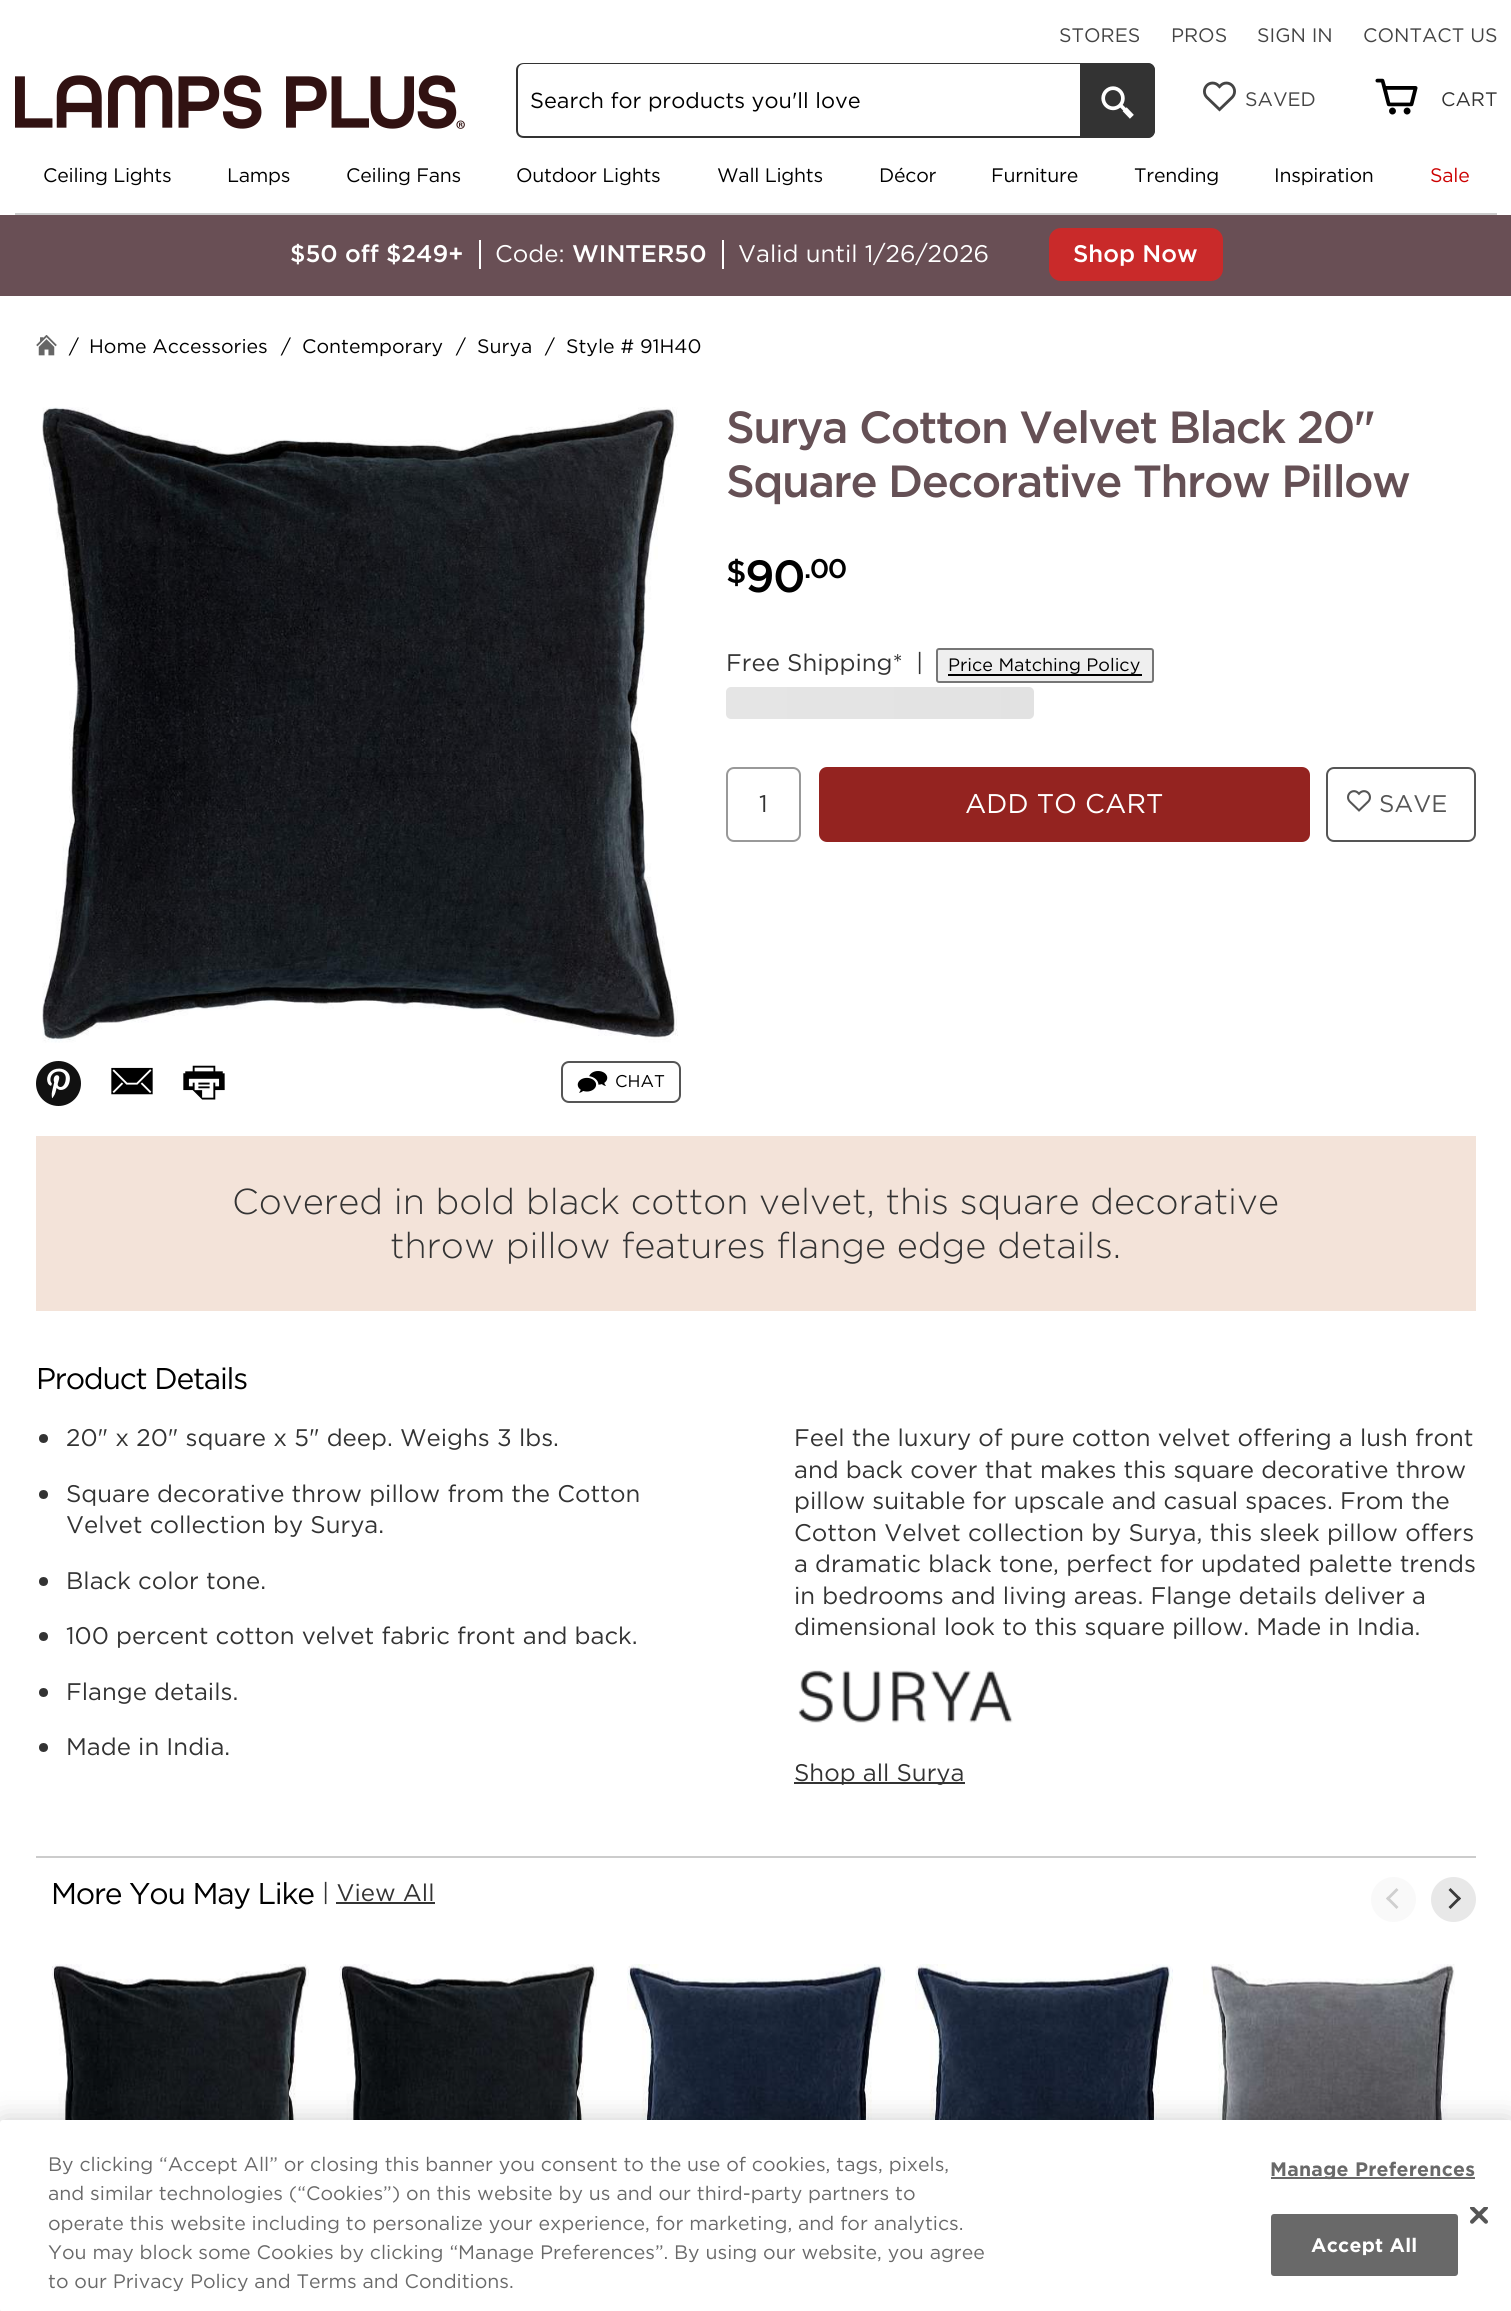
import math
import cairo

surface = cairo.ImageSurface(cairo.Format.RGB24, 1511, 2311)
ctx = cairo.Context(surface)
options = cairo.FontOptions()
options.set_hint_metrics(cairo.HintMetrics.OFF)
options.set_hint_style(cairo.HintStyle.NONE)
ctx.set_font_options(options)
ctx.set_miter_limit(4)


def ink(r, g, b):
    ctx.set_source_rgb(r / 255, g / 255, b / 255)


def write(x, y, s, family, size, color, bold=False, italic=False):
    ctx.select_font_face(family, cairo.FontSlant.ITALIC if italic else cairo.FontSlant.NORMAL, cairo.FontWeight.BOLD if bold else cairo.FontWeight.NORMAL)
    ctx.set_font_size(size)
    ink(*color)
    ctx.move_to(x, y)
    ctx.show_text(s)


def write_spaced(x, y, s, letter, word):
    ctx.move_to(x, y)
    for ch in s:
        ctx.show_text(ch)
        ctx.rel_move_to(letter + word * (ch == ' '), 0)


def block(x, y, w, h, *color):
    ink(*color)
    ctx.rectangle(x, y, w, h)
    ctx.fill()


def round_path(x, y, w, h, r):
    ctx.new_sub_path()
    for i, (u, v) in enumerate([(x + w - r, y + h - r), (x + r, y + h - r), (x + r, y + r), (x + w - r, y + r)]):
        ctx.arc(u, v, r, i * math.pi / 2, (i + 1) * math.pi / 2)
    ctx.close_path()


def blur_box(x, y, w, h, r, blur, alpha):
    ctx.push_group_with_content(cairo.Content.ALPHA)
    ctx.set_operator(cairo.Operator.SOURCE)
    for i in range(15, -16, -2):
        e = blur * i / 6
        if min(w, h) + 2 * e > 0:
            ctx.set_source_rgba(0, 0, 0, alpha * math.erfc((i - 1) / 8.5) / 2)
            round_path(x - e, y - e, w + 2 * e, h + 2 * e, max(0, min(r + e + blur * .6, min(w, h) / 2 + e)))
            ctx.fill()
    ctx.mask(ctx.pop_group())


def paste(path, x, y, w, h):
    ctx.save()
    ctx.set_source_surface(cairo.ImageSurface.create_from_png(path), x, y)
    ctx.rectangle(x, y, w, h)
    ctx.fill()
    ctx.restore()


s1 = dict(family="Gotham", size=19.5, color=(68, 68, 68))
s2 = dict(family="Gotham", size=21.75, color=(0, 0, 0))
s3 = dict(family="Gotham", size=19.5, color=(51, 51, 51))
s4 = dict(family="Gotham Medium", size=24, color=(255, 255, 255))
s5 = dict(family="Gotham", size=24, color=(255, 255, 255))
s6 = dict(family="Gotham", size=19.5, color=(0, 0, 0))
s7 = dict(family="Gotham", size=24, color=(51, 51, 51))
s8 = dict(family="Gotham", size=18, color=(0, 0, 0))
s9 = dict(family="Gotham", size=27, color=(255, 255, 255))
s10 = dict(family="Gotham", size=24, color=(85, 85, 85))
s11 = dict(family="Gotham", size=17, color=(0, 0, 0))
s12 = dict(family="Gotham Light", size=36, color=(51, 51, 51))
s13 = dict(family="Gotham", size=19.5, color=(105, 105, 105))

ink(255, 255, 255)
ctx.paint()
write(1059, 42, "STORES", **s1)
write(1171, 42, "PROS", **s1)
write(1257, 42, "SIGN IN", **s1)
write(1363, 42, "CONTACT US", **s1)
block(15, 213, 1482, 2, 204, 204, 204)
paste("pic1.png", 15, 75, 450, 54)
ink(51, 51, 51)
ctx.set_fill_rule(cairo.FillRule.EVEN_ODD)
ctx.new_path()
ctx.move_to(524, 63)
ctx.line_to(1080, 63)
ctx.line_to(1080, 138)
ctx.line_to(524, 138)
ctx.curve_to(519, 138, 516, 135, 516, 130)
ctx.line_to(516, 70)
ctx.curve_to(516, 66, 519, 63, 524, 63)
ctx.close_path()
ctx.move_to(524, 64)
ctx.line_to(1080, 64)
ctx.line_to(1080, 136)
ctx.line_to(524, 136)
ctx.curve_to(520, 136, 518, 134, 518, 130)
ctx.line_to(518, 70)
ctx.curve_to(518, 67, 520, 64, 524, 64)
ctx.close_path()
ctx.fill()
write(530, 108, "Search for products you'll love", **s2)
ink(51, 51, 51)
ctx.new_path()
ctx.move_to(1080, 63)
ctx.line_to(1147, 63)
ctx.curve_to(1151.5, 63, 1155, 66.5, 1155, 71)
ctx.line_to(1155, 130)
ctx.curve_to(1155, 134.5, 1151.5, 138, 1147, 138)
ctx.line_to(1080, 138)
ctx.close_path()
ctx.fill()
ctx.new_path()
ctx.move_to(1080, 63)
ctx.line_to(1148, 63)
ctx.curve_to(1152, 63, 1155, 66, 1155, 70)
ctx.line_to(1155, 130)
ctx.curve_to(1155, 135, 1152, 138, 1148, 138)
ctx.line_to(1080, 138)
ctx.close_path()
ctx.move_to(1080, 64)
ctx.line_to(1148, 64)
ctx.curve_to(1151, 64, 1154, 67, 1154, 70)
ctx.line_to(1154, 130)
ctx.curve_to(1154, 134, 1151, 136, 1148, 136)
ctx.line_to(1080, 136)
ctx.close_path()
ctx.fill()
paste("pic2.png", 1101, 86, 33, 33)
paste("pic3.png", 1203, 81, 33, 31)
write(1245, 106, "SAVED", **s1)
paste("pic4.png", 1375, 78, 43, 37)
write(1441, 106, "CART", **s3)
ink(0, 0, 0)
write_spaced(43, 182, "Ceiling Lights", -0.25, 0)
write_spaced(227, 182, "Lamps", -0.25, 0)
write_spaced(346, 182, "Ceiling Fans", -0.25, 0)
write_spaced(516, 182, "Outdoor Lights", -0.25, 0)
write_spaced(717, 182, "Wall Lights", -0.25, 0)
write_spaced(879, 182, "Décor", -0.25, 0)
write_spaced(991, 182, "Furniture", -0.25, 0)
write_spaced(1134, 182, "Trending", -0.25, 0)
write_spaced(1274, 182, "Inspiration", -0.25, 0)
ink(204, 0, 0)
write_spaced(1430, 182, "Sale", -0.25, 0)
block(0, 215, 1511, 81, 105, 79, 85)
block(479, 240, 2, 29, 255, 255, 255)
write(290, 262, "$50 off $249+", **s4)
write(495, 262, "Code:", **s5)
write(572, 262, "WINTER50", **s4)
block(722, 240, 2, 29, 255, 255, 255)
write(738, 262, "Valid until 1/26/2026", **s5)
ink(201, 42, 42)
round_path(1049, 228, 174, 53, 12)
ctx.fill()
write(1073, 262, "Shop Now", **s4)
paste("pic5.png", 36, 335, 21, 21)
write(69, 353, "/", **s6)
write(89, 353, "Home Accessories", **s6)
write(281, 353, "/", **s6)
write(302, 353, "Contemporary", **s6)
write(456, 353, "/", **s6)
write(477, 353, "Surya", **s6)
write(545, 353, "/", **s6)
write(566, 353, "Style # 91H40", **s6)
ctx.select_font_face("Gotham Medium")
ctx.set_font_size(45)
ink(101, 80, 85)
write_spaced(726, 443, "Surya Cotton Velvet Black 20\"", -1.5, 0)
write_spaced(726, 497, "Square Decorative Throw Pillow", -1.5, 0)
ctx.set_font_size(32)
ink(0, 0, 0)
write_spaced(726, 583, "$", -1.5, 0)
ctx.set_font_size(45)
write_spaced(745, 592, "90", -1.5, 0)
ctx.set_font_size(27)
write_spaced(804, 578, ".00", -1.5, 0)
write(726, 671, "Free Shipping*", **s7)
write(916, 671, "|", **s7)
ink(239, 239, 239)
round_path(937, 649, 216, 33, 2)
ctx.fill_preserve()
ink(118, 118, 118)
ctx.stroke()
write(948, 671, "Price Matching Policy", **s8)
block(948, 674, 194, 2, 0, 0, 0)
gradient = cairo.LinearGradient(0, 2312, 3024, 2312)
gradient.add_color_stop_rgba(0, 0.925, 0.925, 0.925, 1)
gradient.add_color_stop_rgba(0.45, 0.875, 0.875, 0.875, 1)
gradient.add_color_stop_rgba(0.5, 0.878, 0.878, 0.878, 1)
gradient.add_color_stop_rgba(1, 0.925, 0.925, 0.925, 1)
ctx.set_source(gradient)
round_path(726, 687, 308, 32, 5)
ctx.fill()
round_path(727, 768, 73, 73, 7)
ink(153, 153, 153)
ctx.stroke()
write(759, 812, "1", **s7)
ink(148, 35, 32)
round_path(819, 767, 491, 75, 8)
ctx.fill()
write(965, 813, "ADD TO CART", **s9)
round_path(1327, 768, 148, 73, 7)
ink(85, 85, 85)
ctx.stroke()
paste("pic6.png", 1347, 790, 24, 22)
write(1379, 812, "SAVE", **s10)
paste("pic7.png", 42, 407, 636, 636)
ink(17, 17, 17)
ctx.arc(58.5, 1083.5, 22.5, 0, 2 * math.pi)
ctx.fill()
paste("pic8.png", 47, 1068, 23, 31)
paste("pic9.png", 111, 1067, 42, 28)
paste("pic10.png", 183, 1065, 42, 35)
round_path(562, 1062, 118, 40, 7)
ink(85, 85, 85)
ctx.stroke()
paste("pic11.png", 577, 1071, 31, 22)
write(615, 1087, "CHAT", **s11)
block(36, 1136, 1440, 175, 243, 227, 217)
write(232, 1214, "Covered in bold black cotton velvet, this square decorative", **s12)
write(390, 1258, "throw pillow features flange edge details.", **s12)
ctx.select_font_face("Gotham")
ctx.set_font_size(30)
ink(0, 0, 0)
write_spaced(36, 1389, "Product Details", -1.25, 0)
ink(51, 51, 51)
ctx.new_path()
ctx.arc(43.5, 1438.5, 4.5, 0, 2 * math.pi)
ctx.fill()
write(66, 1446, "20\" x 20\" square x 5\" deep. Weighs 3 lbs.", **s7)
ctx.new_path()
ctx.arc(43.5, 1494.5, 4.5, 0, 2 * math.pi)
ctx.fill()
write(66, 1502, "Square decorative throw pillow from the Cotton", **s7)
write(66, 1533, "Velvet collection by Surya.", **s7)
ctx.new_path()
ctx.arc(43.5, 1581.5, 4.5, 0, 2 * math.pi)
ctx.fill()
write(66, 1589, "Black color tone.", **s7)
ctx.new_path()
ctx.arc(43.5, 1636.5, 4.5, 0, 2 * math.pi)
ctx.fill()
write(66, 1644, "100 percent cotton velvet fabric front and back.", **s7)
ctx.new_path()
ctx.arc(43.5, 1692.5, 4.5, 0, 2 * math.pi)
ctx.fill()
write(66, 1700, "Flange details.", **s7)
ctx.new_path()
ctx.arc(43.5, 1747.5, 4.5, 0, 2 * math.pi)
ctx.fill()
write(66, 1755, "Made in India.", **s7)
write(794, 1446, "Feel the luxury of pure cotton velvet offering a lush front", **s7)
write(794, 1478, "and back cover that makes this square decorative throw", **s7)
write(794, 1509, "pillow suitable for upscale and casual spaces. From the", **s7)
write(794, 1541, "Cotton Velvet collection by Surya, this sleek pillow offers", **s7)
write(794, 1572, "a dramatic black tone, perfect for updated palette trends", **s7)
write(794, 1604, "in bedrooms and living areas. Flange details deliver a", **s7)
write(794, 1635, "dimensional look to this square pillow. Made in India.", **s7)
paste("pic12.png", 798, 1670, 215, 53)
block(794, 1782, 171, 2, 51, 51, 51)
write(794, 1781, "Shop all Surya", **s7)
block(36, 1856, 1440, 2, 204, 204, 204)
ctx.set_font_size(30)
ink(0, 0, 0)
write_spaced(51, 1904, "More You May Like", -1.25, 0)
write(322, 1901, "| View All", **s7)
block(336, 1902, 99, 2, 51, 51, 51)
ink(249, 249, 249)
ctx.new_path()
ctx.arc(1393.5, 1899.5, 22.5, 0, 2 * math.pi)
ctx.fill()
ink(207, 207, 207)
ctx.set_fill_rule(cairo.FillRule.WINDING)
ctx.new_path()
ctx.move_to(1398.5, 1907)
ctx.line_to(1396.5, 1909)
ctx.line_to(1386, 1898.5)
ctx.line_to(1388, 1896.5)
ctx.close_path()
ctx.fill()
ctx.new_path()
ctx.move_to(1398.5, 1890)
ctx.line_to(1388, 1900.5)
ctx.line_to(1386, 1898.5)
ctx.line_to(1396.5, 1888)
ctx.close_path()
ctx.fill()
ink(232, 232, 232)
ctx.arc(1453.5, 1899.5, 22.5, 0, 2 * math.pi)
ctx.fill()
ink(58, 58, 58)
ctx.new_path()
ctx.move_to(1448.5, 1890)
ctx.line_to(1450.5, 1888)
ctx.line_to(1461, 1898.5)
ctx.line_to(1459, 1900.5)
ctx.close_path()
ctx.fill()
ctx.new_path()
ctx.move_to(1448.5, 1907)
ctx.line_to(1459, 1896.5)
ctx.line_to(1461, 1898.5)
ctx.line_to(1450.5, 1909)
ctx.close_path()
ctx.fill()
paste("pic13.png", 51, 1964, 258, 156)
paste("pic14.png", 339, 1964, 258, 156)
paste("pic15.png", 627, 1964, 258, 156)
paste("pic16.png", 915, 1964, 258, 156)
paste("pic17.png", 1203, 1964, 252, 156)
ink(0, 0, 0)
blur_box(0, 2120, 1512, 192, 3, 13.5, 0.2)
ink(255, 255, 255)
round_path(0, 2120, 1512, 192, 3)
ctx.fill()
write(48, 2171, "By clicking “Accept All” or closing this banner you consent to the use of cookies, tags, pixels,", **s13)
write(48, 2200, "and similar technologies (“Cookies”) on this website by us and our third-party partners to", **s13)
write(48, 2230, "operate this website including to personalize your experience, for marketing, and for analytics.", **s13)
write(48, 2259, "You may block some Cookies by clicking “Manage Preferences”.", **s13)
write(674, 2259, "By using our website, you agree", **s13)
write(48, 2288, "to our Privacy Policy and Terms and Conditions.", **s13)
block(1271, 2177, 204, 2, 105, 105, 105)
ctx.select_font_face("Gotham", cairo.FontSlant.NORMAL, cairo.FontWeight.BOLD)
write_spaced(1270, 2176, "Manage Preferences", 0.25, 0)
round_path(1272, 2215, 185, 60, 2)
ctx.fill_preserve()
ctx.stroke()
ink(255, 255, 255)
write_spaced(1311, 2252, "Accept All", 0.25, 0)
paste("pic18.png", 1470, 2207, 18, 17)
surface.write_to_png("screenshot.png")
